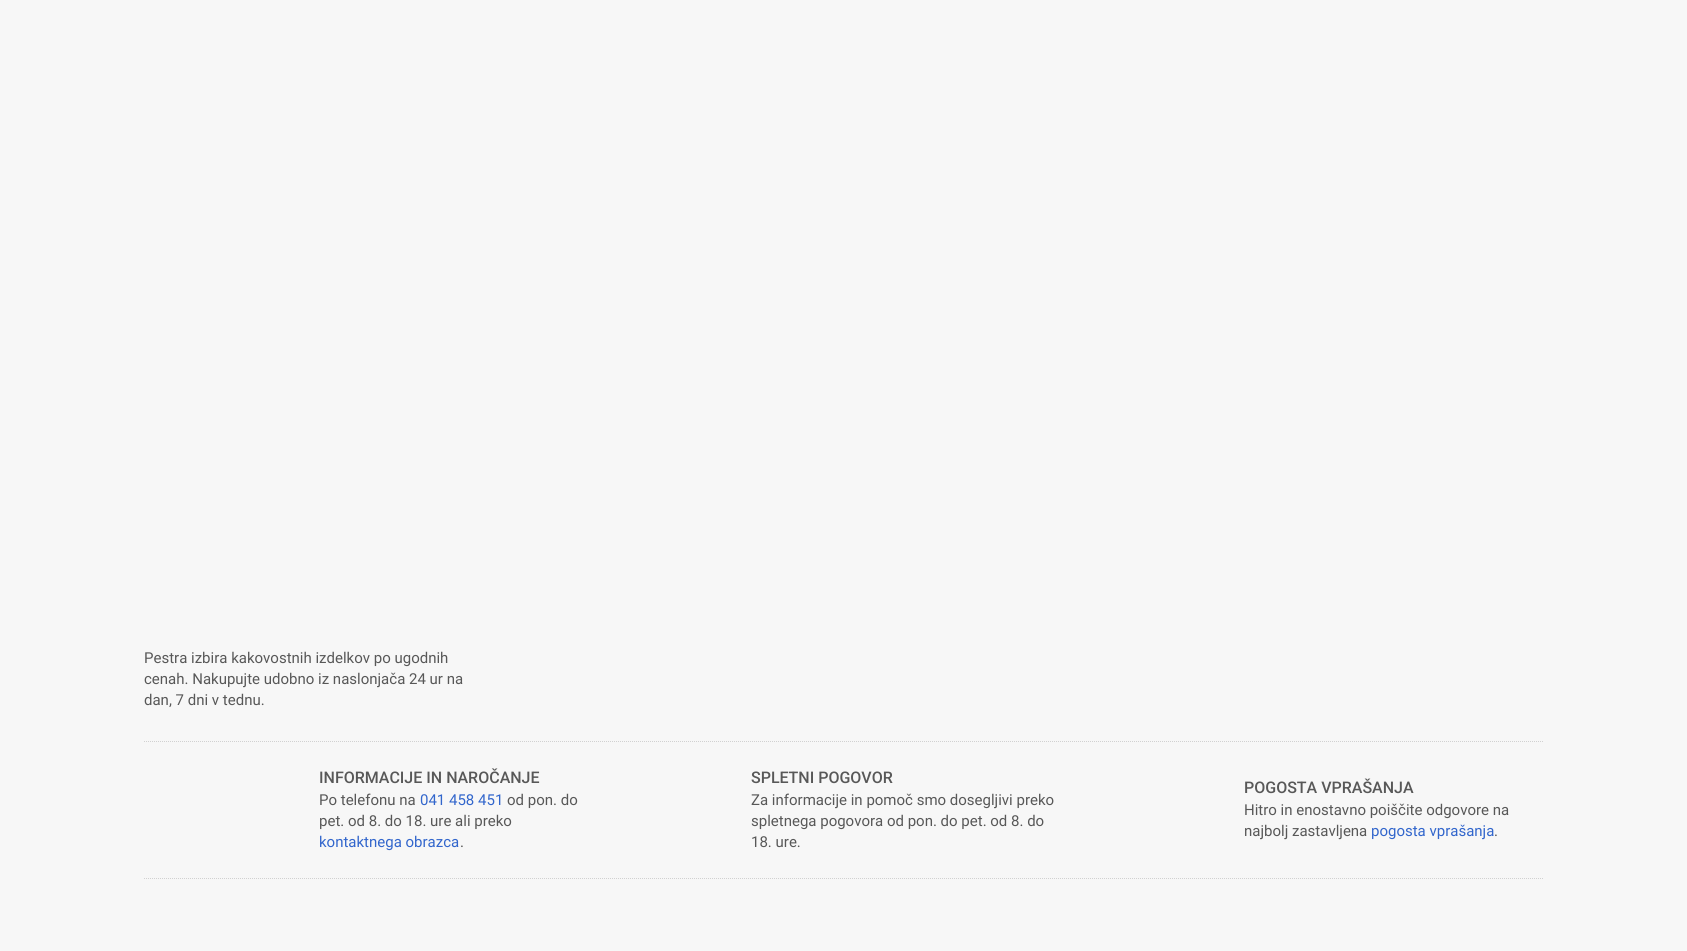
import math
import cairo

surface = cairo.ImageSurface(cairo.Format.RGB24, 1687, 951)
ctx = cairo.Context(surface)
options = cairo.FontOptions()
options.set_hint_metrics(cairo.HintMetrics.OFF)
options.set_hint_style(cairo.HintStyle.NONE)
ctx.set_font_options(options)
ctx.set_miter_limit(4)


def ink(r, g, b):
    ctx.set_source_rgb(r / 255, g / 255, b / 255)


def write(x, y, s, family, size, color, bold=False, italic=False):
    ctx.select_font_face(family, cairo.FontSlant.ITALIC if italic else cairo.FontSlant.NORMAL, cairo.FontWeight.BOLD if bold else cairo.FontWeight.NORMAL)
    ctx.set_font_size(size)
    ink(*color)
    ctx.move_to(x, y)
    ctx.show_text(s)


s1 = dict(family="Roboto", size=15, color=(88, 88, 88))
s2 = dict(family="Roboto Medium", size=16, color=(88, 88, 88))
s3 = dict(family="Roboto", size=15, color=(50, 102, 204))

ink(247, 247, 247)
ctx.paint()
write(144, 663, "Pestra izbira kakovostnih izdelkov po ugodnih", **s1)
write(144, 684, "cenah. Nakupujte udobno iz naslonjača 24 ur na", **s1)
write(144, 705, "dan, 7 dni v tednu.", **s1)
ctx.new_path()
ctx.move_to(144, 741.5)
ctx.line_to(1544, 741.5)
ink(209, 209, 209)
ctx.set_line_width(1)
ctx.set_dash([1, 1])
ctx.stroke()
write(319, 783, "INFORMACIJE IN NAROČANJE", **s2)
write(319, 805, "Po telefonu na", **s1)
write(420, 805, "041 458 451", **s3)
write(507, 805, "od pon. do", **s1)
write(319, 826, "pet. od 8. do 18. ure ali preko", **s1)
write(319, 847, "kontaktnega obrazca", **s3)
write(460, 847, ".", **s1)
write(751, 783, "SPLETNI POGOVOR", **s2)
write(751, 805, "Za informacije in pomoč smo dosegljivi preko", **s1)
write(751, 826, "spletnega pogovora od pon. do pet. od 8. do", **s1)
write(751, 847, "18. ure.", **s1)
write(1244, 793, "POGOSTA VPRAŠANJA", **s2)
write(1244, 815, "Hitro in enostavno poiščite odgovore na", **s1)
write(1244, 836, "najbolj zastavljena", **s1)
write(1371, 836, "pogosta vprašanja", **s3)
write(1494, 836, ".", **s1)
ctx.new_path()
ctx.move_to(144, 878.5)
ctx.line_to(1544, 878.5)
ink(209, 209, 209)
ctx.stroke()
surface.write_to_png("screenshot.png")
